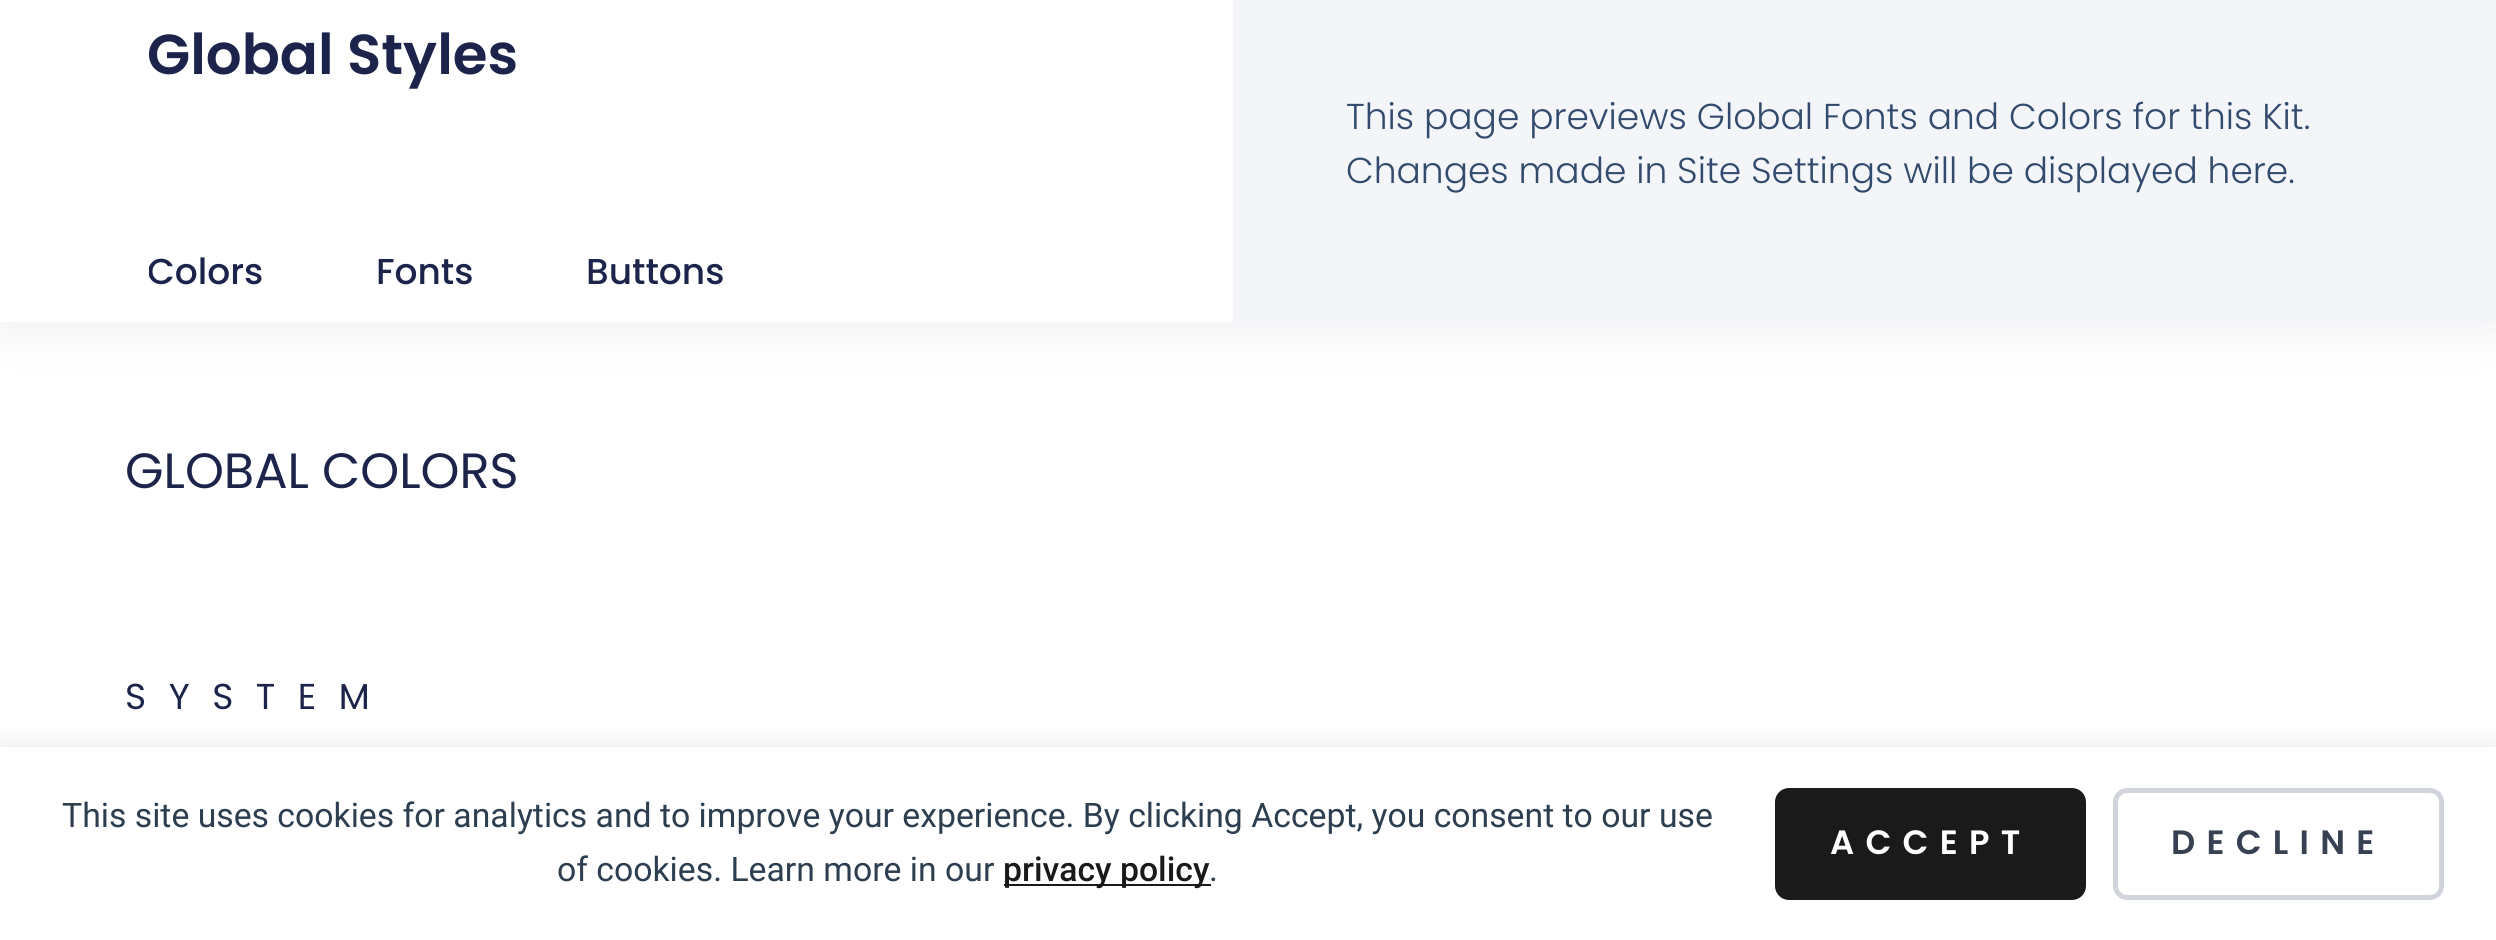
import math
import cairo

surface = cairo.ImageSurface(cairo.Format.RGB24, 2496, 940)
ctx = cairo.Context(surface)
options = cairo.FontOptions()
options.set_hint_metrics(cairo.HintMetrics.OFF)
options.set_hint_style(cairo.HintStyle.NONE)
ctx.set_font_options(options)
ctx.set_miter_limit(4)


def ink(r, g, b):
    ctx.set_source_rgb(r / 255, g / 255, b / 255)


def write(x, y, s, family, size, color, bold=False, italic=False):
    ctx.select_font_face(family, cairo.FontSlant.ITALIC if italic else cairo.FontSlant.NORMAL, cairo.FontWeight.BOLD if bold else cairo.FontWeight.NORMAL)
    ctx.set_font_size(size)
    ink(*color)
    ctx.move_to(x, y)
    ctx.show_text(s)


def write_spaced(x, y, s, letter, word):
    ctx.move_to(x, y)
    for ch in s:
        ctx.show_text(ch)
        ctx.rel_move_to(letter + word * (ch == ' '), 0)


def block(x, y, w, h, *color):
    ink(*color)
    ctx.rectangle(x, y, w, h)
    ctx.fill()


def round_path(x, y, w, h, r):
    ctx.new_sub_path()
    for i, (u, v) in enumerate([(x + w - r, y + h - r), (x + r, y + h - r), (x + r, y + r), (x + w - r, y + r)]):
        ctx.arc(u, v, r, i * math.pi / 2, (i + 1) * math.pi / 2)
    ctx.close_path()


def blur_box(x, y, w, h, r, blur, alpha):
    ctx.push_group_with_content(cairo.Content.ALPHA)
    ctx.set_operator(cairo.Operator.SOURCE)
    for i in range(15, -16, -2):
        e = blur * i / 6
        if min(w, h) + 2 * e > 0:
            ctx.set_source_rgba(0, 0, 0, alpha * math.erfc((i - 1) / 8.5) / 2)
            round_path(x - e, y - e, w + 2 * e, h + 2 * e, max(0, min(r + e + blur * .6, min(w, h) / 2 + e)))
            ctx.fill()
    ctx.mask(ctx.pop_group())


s1 = dict(family="Poppins SemiBold", size=56.25, color=(28, 36, 75))
s2 = dict(family="Poppins Medium", size=36, color=(28, 36, 75))
s3 = dict(family="Poppins Light", size=36, color=(50, 74, 109))
s4 = dict(family="Poppins", size=49.5, color=(28, 36, 75))
s5 = dict(family="Roboto", size=33.75, color=(44, 62, 80))
s6 = dict(family="Roboto Medium", size=33.75, color=(26, 26, 26))

ink(255, 255, 255)
ctx.paint()
ink(28, 36, 72)
blur_box(0, 9, 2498, 322, 0, 27, 0.07)
block(0, 0, 1233, 322, 255, 255, 255)
write(147, 74, "Global Styles", **s1)
ctx.save()
ctx.rectangle(149, 245, 576, 54)
ctx.clip()
write(147, 284, "Colors", **s2)
ctx.restore()
write(376, 284, "Fonts", **s2)
write(586, 284, "Buttons", **s2)
block(1233, 0, 1263, 322, 243, 245, 248)
write(1346, 129, "This page previews Global Fonts and Colors for this Kit.", **s3)
write(1346, 183, "Changes made in Site Settings will be displayed here.", **s3)
write(125, 488, "GLOBAL COLORS", **s4)
ctx.set_font_size(36)
write_spaced(125, 709, "SYSTEM", 22.5, 0)
ink(0, 0, 0)
blur_box(0, 743, 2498, 193, 0, 11, 0.08)
block(0, 747, 2496, 193, 255, 255, 255)
write(62, 827, "This site uses cookies for analytics and to improve your experience. By clicking Accept, you consent to our use", **s5)
write(557, 881, "of cookies. Learn more in our", **s5)
block(1004, 884, 207, 2, 26, 26, 26)
write(1003, 881, "privacy policy", **s6)
write(1209, 881, ".", **s5)
ink(26, 26, 26)
round_path(1775, 788, 311, 112, 14)
ctx.fill()
ctx.select_font_face("Poppins SemiBold")
ink(255, 255, 255)
write_spaced(1830, 854, "ACCEPT", 11.25, 0)
round_path(2115.5, 790.5, 326, 107, 11.5)
ink(209, 213, 219)
ctx.set_line_width(5)
ctx.stroke()
ink(55, 65, 81)
write_spaced(2171, 854, "DECLINE", 11.25, 0)
surface.write_to_png("screenshot.png")
